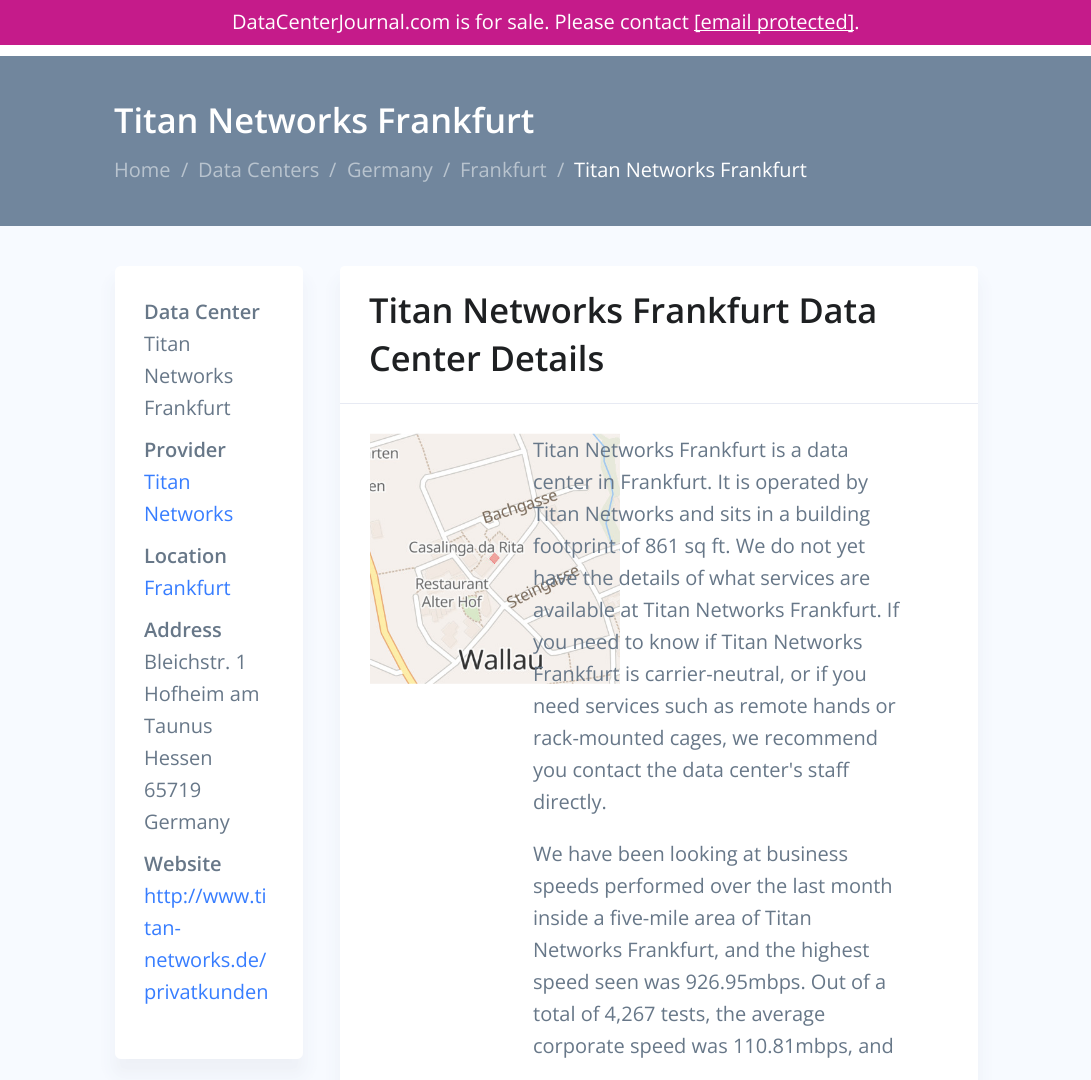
import math
import cairo

surface = cairo.ImageSurface(cairo.Format.RGB24, 1091, 1080)
ctx = cairo.Context(surface)
options = cairo.FontOptions()
options.set_hint_metrics(cairo.HintMetrics.OFF)
options.set_hint_style(cairo.HintStyle.NONE)
ctx.set_font_options(options)
ctx.set_miter_limit(4)


def ink(r, g, b):
    ctx.set_source_rgb(r / 255, g / 255, b / 255)


def write(x, y, s, family, size, color, bold=False, italic=False):
    ctx.select_font_face(family, cairo.FontSlant.ITALIC if italic else cairo.FontSlant.NORMAL, cairo.FontWeight.BOLD if bold else cairo.FontWeight.NORMAL)
    ctx.set_font_size(size)
    ink(*color)
    ctx.move_to(x, y)
    ctx.show_text(s)


def block(x, y, w, h, *color):
    ink(*color)
    ctx.rectangle(x, y, w, h)
    ctx.fill()


def round_path(x, y, w, h, r):
    ctx.new_sub_path()
    for i, (u, v) in enumerate([(x + w - r, y + h - r), (x + r, y + h - r), (x + r, y + r), (x + w - r, y + r)]):
        ctx.arc(u, v, r, i * math.pi / 2, (i + 1) * math.pi / 2)
    ctx.close_path()


def blur_box(x, y, w, h, r, blur, alpha):
    ctx.push_group_with_content(cairo.Content.ALPHA)
    ctx.set_operator(cairo.Operator.SOURCE)
    for i in range(15, -16, -2):
        e = blur * i / 6
        if min(w, h) + 2 * e > 0:
            ctx.set_source_rgba(0, 0, 0, alpha * math.erfc((i - 1) / 8.5) / 2)
            round_path(x - e, y - e, w + 2 * e, h + 2 * e, max(0, min(r + e + blur * .6, min(w, h) / 2 + e)))
            ctx.fill()
    ctx.mask(ctx.pop_group())


def paste(path, x, y, w, h):
    ctx.save()
    ctx.set_source_surface(cairo.ImageSurface.create_from_png(path), x, y)
    ctx.rectangle(x, y, w, h)
    ctx.fill()
    ctx.restore()


s1 = dict(family="Open Sans", size=20, color=(255, 255, 255))
s2 = dict(family="Open Sans SemiBold", size=34.4, color=(255, 255, 255))
s3 = dict(family="Open Sans", size=20, color=(184, 195, 206))
s4 = dict(family="Open Sans SemiBold", size=20, color=(103, 119, 136))
s5 = dict(family="Open Sans", size=20, color=(103, 119, 136))
s6 = dict(family="Open Sans", size=20, color=(55, 125, 255))
s7 = dict(family="Open Sans SemiBold", size=34.4, color=(30, 32, 34))

ink(255, 255, 255)
ctx.paint()
block(0, 0, 1091, 45, 197, 27, 138)
write(232, 29, "DataCenterJournal.com is for sale. Please contact", **s1)
block(694, 30, 160, 1, 255, 255, 255)
write(694, 29, "[email protected].", **s1)
block(0, 226, 1091, 854, 247, 250, 255)
block(0, 56, 1091, 170, 113, 134, 157)
write(114, 133, "Titan Networks Frankfurt", **s2)
write(114, 177, "Home", **s3)
write(181, 177, "/", **s3)
write(198, 177, "Data Centers", **s3)
write(329, 177, "/", **s3)
write(347, 177, "Germany", **s3)
write(443, 177, "/", **s3)
write(460, 177, "Frankfurt", **s3)
write(557, 177, "/", **s3)
write(574, 177, "Titan Networks Frankfurt", **s1)
ink(140, 152, 164)
blur_box(115, 281, 188, 793, 6, 9.5, 0.1)
ink(255, 255, 255)
round_path(115, 266, 188, 793, 6)
ctx.fill()
write(144, 319, "Data Center", **s4)
write(144, 351, "Titan", **s5)
write(144, 383, "Networks", **s5)
write(144, 415, "Frankfurt", **s5)
write(144, 457, "Provider", **s4)
write(144, 489, "Titan", **s6)
write(144, 521, "Networks", **s6)
write(144, 563, "Location", **s4)
write(144, 595, "Frankfurt", **s6)
write(144, 637, "Address", **s4)
write(144, 669, "Bleichstr. 1", **s5)
write(144, 701, "Hofheim am", **s5)
write(144, 733, "Taunus", **s5)
write(144, 765, "Hessen", **s5)
write(144, 797, "65719", **s5)
write(144, 829, "Germany", **s5)
write(144, 871, "Website", **s4)
write(144, 903, "http://www.ti", **s6)
write(144, 935, "tan-", **s6)
write(144, 967, "networks.de/", **s6)
write(144, 999, "privatkunden", **s6)
ink(140, 152, 164)
blur_box(340, 281, 638, 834, 6, 9.5, 0.1)
ink(255, 255, 255)
round_path(340, 266, 638, 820, 6)
ctx.fill()
ctx.new_path()
ctx.move_to(345, 266)
ctx.line_to(973, 266)
ctx.curve_to(976, 266, 978, 268, 978, 271)
ctx.line_to(978, 404)
ctx.line_to(340, 404)
ctx.line_to(340, 271)
ctx.curve_to(340, 268, 342, 266, 345, 266)
ctx.close_path()
ctx.fill()
block(340, 403, 638, 1, 231, 234, 243)
write(369, 323, "Titan Networks Frankfurt Data", **s7)
write(369, 371, "Center Details", **s7)
paste("pic1.png", 370, 433, 250, 251)
write(533, 457, "Titan Networks Frankfurt is a data", **s5)
write(533, 489, "center in Frankfurt. It is operated by", **s5)
write(533, 521, "Titan Networks and sits in a building", **s5)
write(533, 553, "footprint of 861 sq ft. We do not yet", **s5)
write(533, 585, "have the details of what services are", **s5)
write(533, 617, "available at Titan Networks Frankfurt. If", **s5)
write(533, 649, "you need to know if Titan Networks", **s5)
write(533, 681, "Frankfurt is carrier-neutral, or if you", **s5)
write(533, 713, "need services such as remote hands or", **s5)
write(533, 745, "rack-mounted cages, we recommend", **s5)
write(533, 777, "you contact the data center's staff", **s5)
write(533, 809, "directly.", **s5)
write(533, 861, "We have been looking at business", **s5)
write(533, 893, "speeds performed over the last month", **s5)
write(533, 925, "inside a five-mile area of Titan", **s5)
write(533, 957, "Networks Frankfurt, and the highest", **s5)
write(533, 989, "speed seen was 926.95mbps. Out of a", **s5)
write(533, 1021, "total of 4,267 tests, the average", **s5)
write(533, 1053, "corporate speed was 110.81mbps, and", **s5)
surface.write_to_png("screenshot.png")
